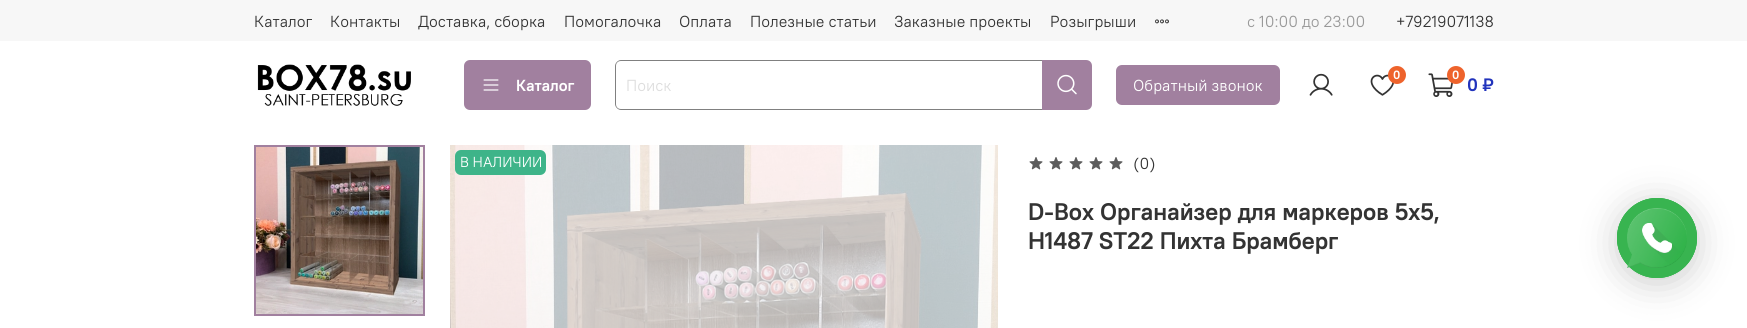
import math
import cairo

surface = cairo.ImageSurface(cairo.Format.RGB24, 1747, 328)
ctx = cairo.Context(surface)
options = cairo.FontOptions()
options.set_hint_metrics(cairo.HintMetrics.OFF)
options.set_hint_style(cairo.HintStyle.NONE)
ctx.set_font_options(options)
ctx.set_miter_limit(4)


def ink(r, g, b):
    ctx.set_source_rgb(r / 255, g / 255, b / 255)


def write(x, y, s, family, size, color, bold=False, italic=False):
    ctx.select_font_face(family, cairo.FontSlant.ITALIC if italic else cairo.FontSlant.NORMAL, cairo.FontWeight.BOLD if bold else cairo.FontWeight.NORMAL)
    ctx.set_font_size(size)
    ink(*color)
    ctx.move_to(x, y)
    ctx.show_text(s)


def block(x, y, w, h, *color):
    ink(*color)
    ctx.rectangle(x, y, w, h)
    ctx.fill()


def round_path(x, y, w, h, r):
    ctx.new_sub_path()
    for i, (u, v) in enumerate([(x + w - r, y + h - r), (x + r, y + h - r), (x + r, y + r), (x + w - r, y + r)]):
        ctx.arc(u, v, r, i * math.pi / 2, (i + 1) * math.pi / 2)
    ctx.close_path()


def blur_box(x, y, w, h, r, blur, alpha):
    ctx.push_group_with_content(cairo.Content.ALPHA)
    ctx.set_operator(cairo.Operator.SOURCE)
    for i in range(15, -16, -2):
        e = blur * i / 6
        if min(w, h) + 2 * e > 0:
            ctx.set_source_rgba(0, 0, 0, alpha * math.erfc((i - 1) / 8.5) / 2)
            round_path(x - e, y - e, w + 2 * e, h + 2 * e, max(0, min(r + e + blur * .6, min(w, h) / 2 + e)))
            ctx.fill()
    ctx.mask(ctx.pop_group())


def paste(path, x, y, w, h):
    ctx.save()
    ctx.set_source_surface(cairo.ImageSurface.create_from_png(path), x, y)
    ctx.rectangle(x, y, w, h)
    ctx.fill()
    ctx.restore()


s1 = dict(family="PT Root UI", size=16, color=(51, 51, 51))
s2 = dict(family="PT Root UI", size=16, color=(153, 153, 153))
s3 = dict(family="PT Root UI", size=16, color=(255, 255, 255), bold=True)
s4 = dict(family="PT Root UI", size=16, color=(221, 221, 221))
s5 = dict(family="PT Root UI", size=16, color=(255, 255, 255))
s6 = dict(family="PT Root UI", size=12, color=(255, 255, 255), bold=True)
s7 = dict(family="PT Root UI", size=18, color=(33, 51, 188), bold=True)
s8 = dict(family="PT Root UI", size=14.5, color=(255, 255, 255))
s9 = dict(family="PT Root UI", size=24, color=(51, 51, 51), bold=True)

ink(255, 255, 255)
ctx.paint()
block(0, 0, 1747, 41, 247, 247, 247)
write(254, 27, "Каталог", **s1)
write(330, 27, "Контакты", **s1)
write(418, 27, "Доставка, сборка", **s1)
write(564, 27, "Помогалочка", **s1)
write(679, 27, "Оплата", **s1)
write(750, 27, "Полезные статьи", **s1)
write(894, 27, "Заказные проекты", **s1)
write(1050, 27, "Розыгрыши", **s1)
paste("pic1.png", 1155, 19, 14, 5)
write(1247, 27, "с 10:00 до 23:00", **s2)
write(1396, 27, "+79219071138", **s1)
paste("pic2.png", 257, 64, 154, 42)
ink(161, 128, 159)
round_path(464, 60, 127, 50, 6)
ctx.fill()
paste("pic3.png", 483, 79, 16, 12)
write(516, 91, "Каталог", **s3)
ink(128, 128, 128)
ctx.set_fill_rule(cairo.FillRule.EVEN_ODD)
ctx.new_path()
ctx.move_to(621, 60)
ctx.line_to(1042, 60)
ctx.line_to(1042, 110)
ctx.line_to(621, 110)
ctx.curve_to(618, 110, 615, 107, 615, 104)
ctx.line_to(615, 66)
ctx.curve_to(615, 63, 618, 60, 621, 60)
ctx.close_path()
ctx.move_to(621, 61)
ctx.line_to(1042, 61)
ctx.line_to(1042, 109)
ctx.line_to(621, 109)
ctx.curve_to(618, 109, 616, 107, 616, 104)
ctx.line_to(616, 66)
ctx.curve_to(616, 63, 618, 61, 621, 61)
ctx.close_path()
ctx.fill()
write(626, 91, "Поиск", **s4)
ink(161, 128, 159)
ctx.new_path()
ctx.move_to(1042, 60)
ctx.line_to(1086, 60)
ctx.curve_to(1089.5, 60, 1092, 62.5, 1092, 66)
ctx.line_to(1092, 104)
ctx.curve_to(1092, 107.5, 1089.5, 110, 1086, 110)
ctx.line_to(1042, 110)
ctx.close_path()
ctx.fill()
paste("pic4.png", 1057, 74, 20, 21)
round_path(1116, 65, 164, 40, 6)
ctx.fill()
write(1133, 91, "Обратный звонок", **s5)
paste("pic5.png", 1309, 73, 24, 23)
paste("pic6.png", 1370, 74, 24, 22)
ink(238, 99, 44)
ctx.arc(1397, 75, 9, 0, 2 * math.pi)
ctx.fill()
write(1393, 79, "0", **s6)
paste("pic7.png", 1428, 73, 25, 24)
ink(238, 99, 44)
ctx.arc(1456, 75, 9, 0, 2 * math.pi)
ctx.fill()
write(1452, 79, "0", **s6)
write(1467, 91, "0 ₽", **s7)
paste("pic8.png", 256, 147, 167, 167)
ctx.rectangle(255, 146, 169, 169)
ink(161, 128, 159)
ctx.stroke()
paste("pic9.png", 450, 145, 548, 183)
ink(62, 180, 137)
round_path(455, 150, 91, 25, 6)
ctx.fill()
write(460, 167, "В НАЛИЧИИ", **s8)
paste("pic10.png", 1029, 157, 14, 13)
paste("pic10.png", 1049, 157, 14, 13)
paste("pic10.png", 1069, 157, 14, 13)
paste("pic10.png", 1089, 157, 14, 13)
paste("pic10.png", 1109, 157, 14, 13)
write(1133, 169, "(0)", **s1)
write(1028, 220, "D-Box Органайзер для маркеров 5х5,", **s9)
write(1028, 249, "H1487 ST22 Пихта Брамберг", **s9)
ink(0, 0, 0)
blur_box(1617, 203, 80, 80, 40, 17.5, 0.2)
ink(56, 180, 80)
ctx.arc(1657, 238, 39.5, 0, 2 * math.pi)
ctx.fill_preserve()
ctx.set_line_width(1)
ctx.stroke()
ctx.arc(1657, 238, 39.5, 0, 2 * math.pi)
ctx.stroke()
ctx.arc(1657, 238, 39.5, 0, 2 * math.pi)
ctx.stroke()
paste("pic11.png", 1627, 208, 60, 60)
surface.write_to_png("screenshot.png")
